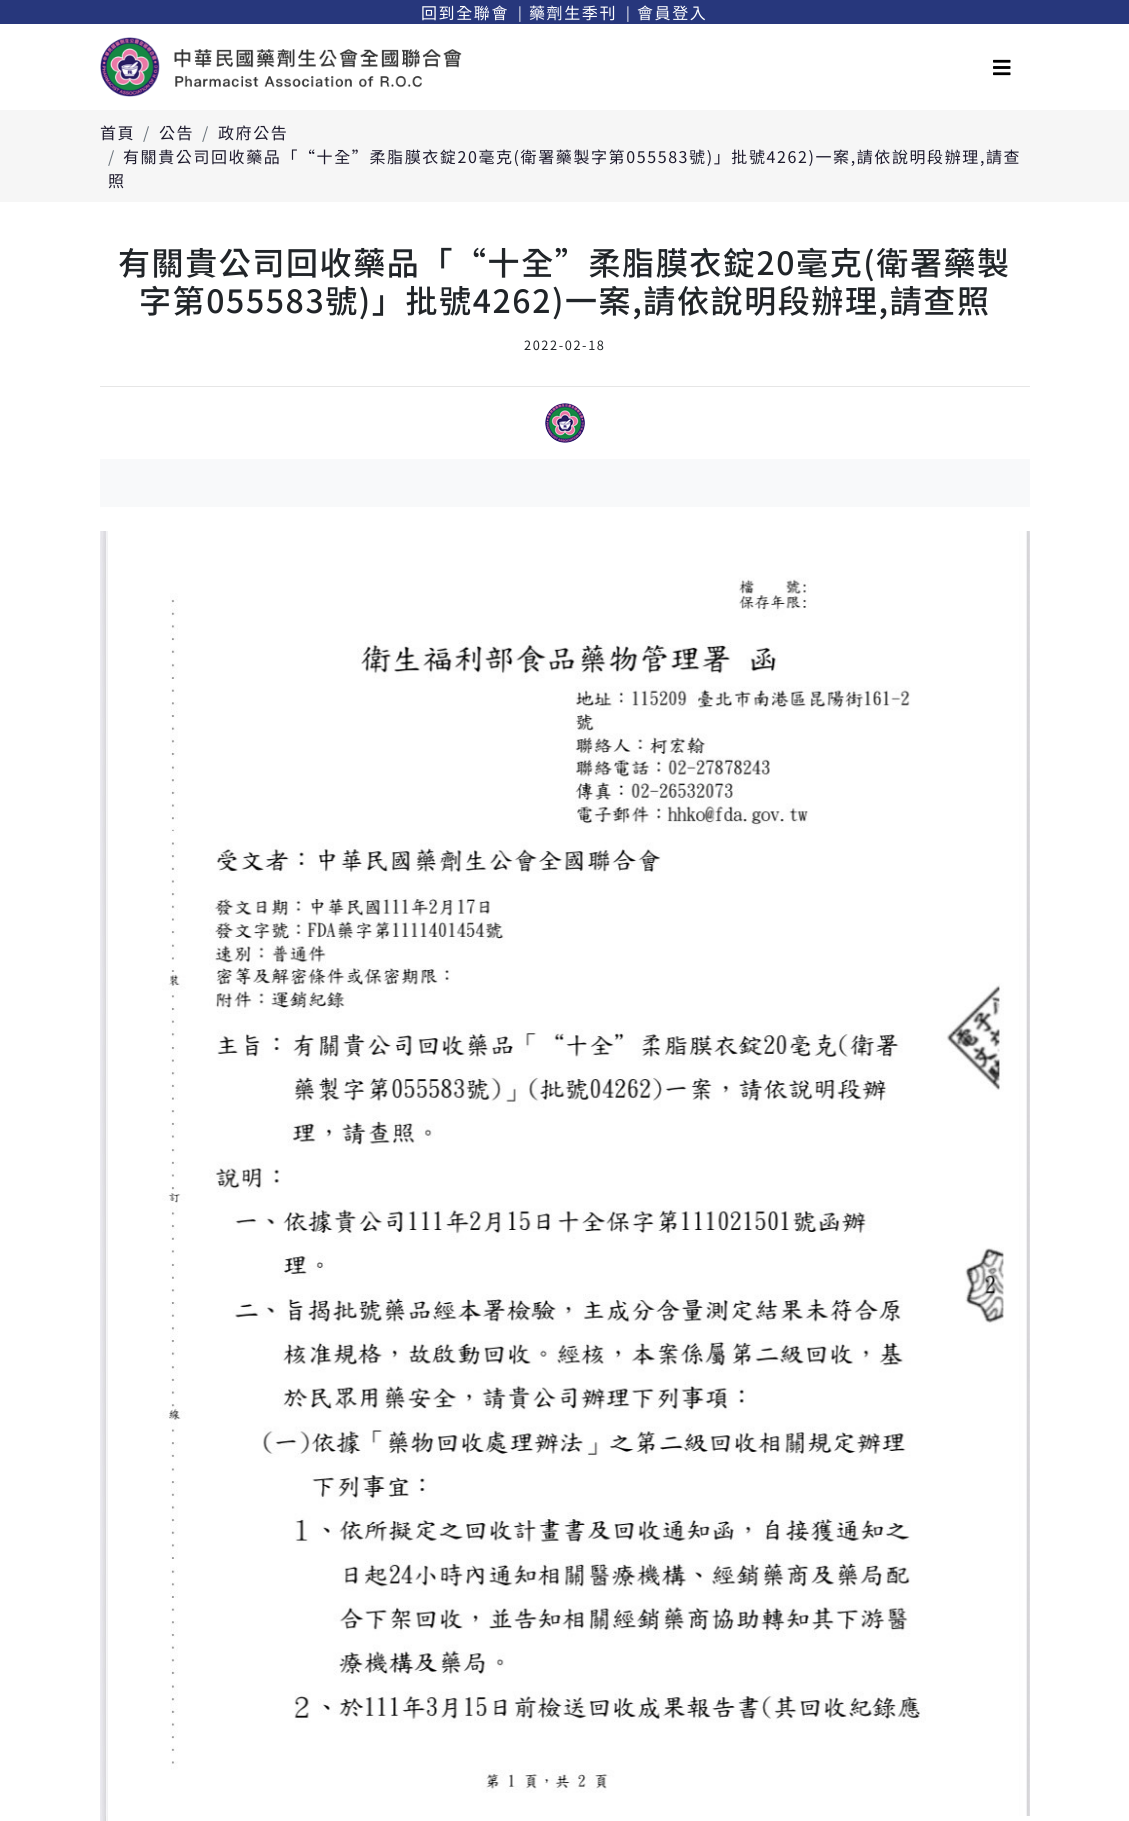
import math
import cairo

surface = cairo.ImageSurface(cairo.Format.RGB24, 1129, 1821)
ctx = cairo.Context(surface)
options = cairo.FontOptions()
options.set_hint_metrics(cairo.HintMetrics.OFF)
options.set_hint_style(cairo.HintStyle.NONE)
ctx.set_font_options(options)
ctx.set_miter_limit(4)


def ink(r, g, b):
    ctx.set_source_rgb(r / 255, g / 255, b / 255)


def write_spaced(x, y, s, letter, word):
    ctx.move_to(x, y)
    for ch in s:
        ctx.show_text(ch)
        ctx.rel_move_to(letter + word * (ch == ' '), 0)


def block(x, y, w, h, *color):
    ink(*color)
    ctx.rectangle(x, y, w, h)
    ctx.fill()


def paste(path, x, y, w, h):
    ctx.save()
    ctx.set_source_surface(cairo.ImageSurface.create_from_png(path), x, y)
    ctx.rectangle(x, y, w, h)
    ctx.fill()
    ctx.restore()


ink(255, 255, 255)
ctx.paint()
block(0, 0, 1129, 24, 39, 55, 124)
ctx.select_font_face("Noto Sans TC")
ctx.set_font_size(16)
ink(255, 255, 255)
write_spaced(421, 19, "回到全聯會", 1.6, 0)
ctx.set_font_size(14)
write_spaced(518, 18, "|", 1.6, 0)
ctx.set_font_size(16)
write_spaced(529, 19, "藥劑生季刊", 1.6, 0)
ctx.set_font_size(14)
write_spaced(626, 18, "|", 1.6, 0)
ctx.set_font_size(16)
write_spaced(637, 19, "會員登入", 1.6, 0)
paste("pic1.png", 100, 37, 60, 60)
paste("pic2.png", 174, 49, 288, 39)
paste("pic3.png", 993, 59, 18, 17)
block(0, 110, 1129, 92, 246, 246, 246)
ink(29, 26, 45)
write_spaced(100, 139, "首頁", 1.6, 0)
ink(108, 117, 125)
write_spaced(143, 139, "/", 1.6, 0)
ink(29, 26, 45)
write_spaced(159, 139, "公告", 1.6, 0)
ink(108, 117, 125)
write_spaced(202, 139, "/", 1.6, 0)
ink(29, 26, 45)
write_spaced(218, 139, "政府公告", 1.6, 0)
ink(108, 117, 125)
write_spaced(108, 163, "/", 1.6, 0)
ink(29, 26, 45)
write_spaced(123, 163, "有關貴公司回收藥品「“十全”柔脂膜衣錠20毫克(衛署藥製字第055583號)」批號4262)一案,請依說明段辦理,請查", 1.6, 0)
write_spaced(108, 187, "照", 1.6, 0)
ctx.select_font_face("Noto Sans TC Medium")
ctx.set_font_size(32)
ink(33, 37, 41)
write_spaced(118, 275, "有關貴公司回收藥品「“十全”柔脂膜衣錠20毫克(衛署藥製", 1.6, 0)
write_spaced(139, 313, "字第055583號)」批號4262)一案,請依說明段辦理,請查照", 1.6, 0)
ctx.select_font_face("Noto Sans TC")
ctx.set_font_size(12.75)
write_spaced(524, 350, "2022-02-18", 1.6, 0)
block(100, 386, 930, 1, 230, 230, 230)
paste("pic4.png", 545, 403, 40, 40)
block(100, 459, 930, 48, 248, 249, 250)
paste("pic5.png", 100, 531, 930, 1285)
paste("pic6.png", 100, 1816, 8, 5)
surface.write_to_png("screenshot.png")
